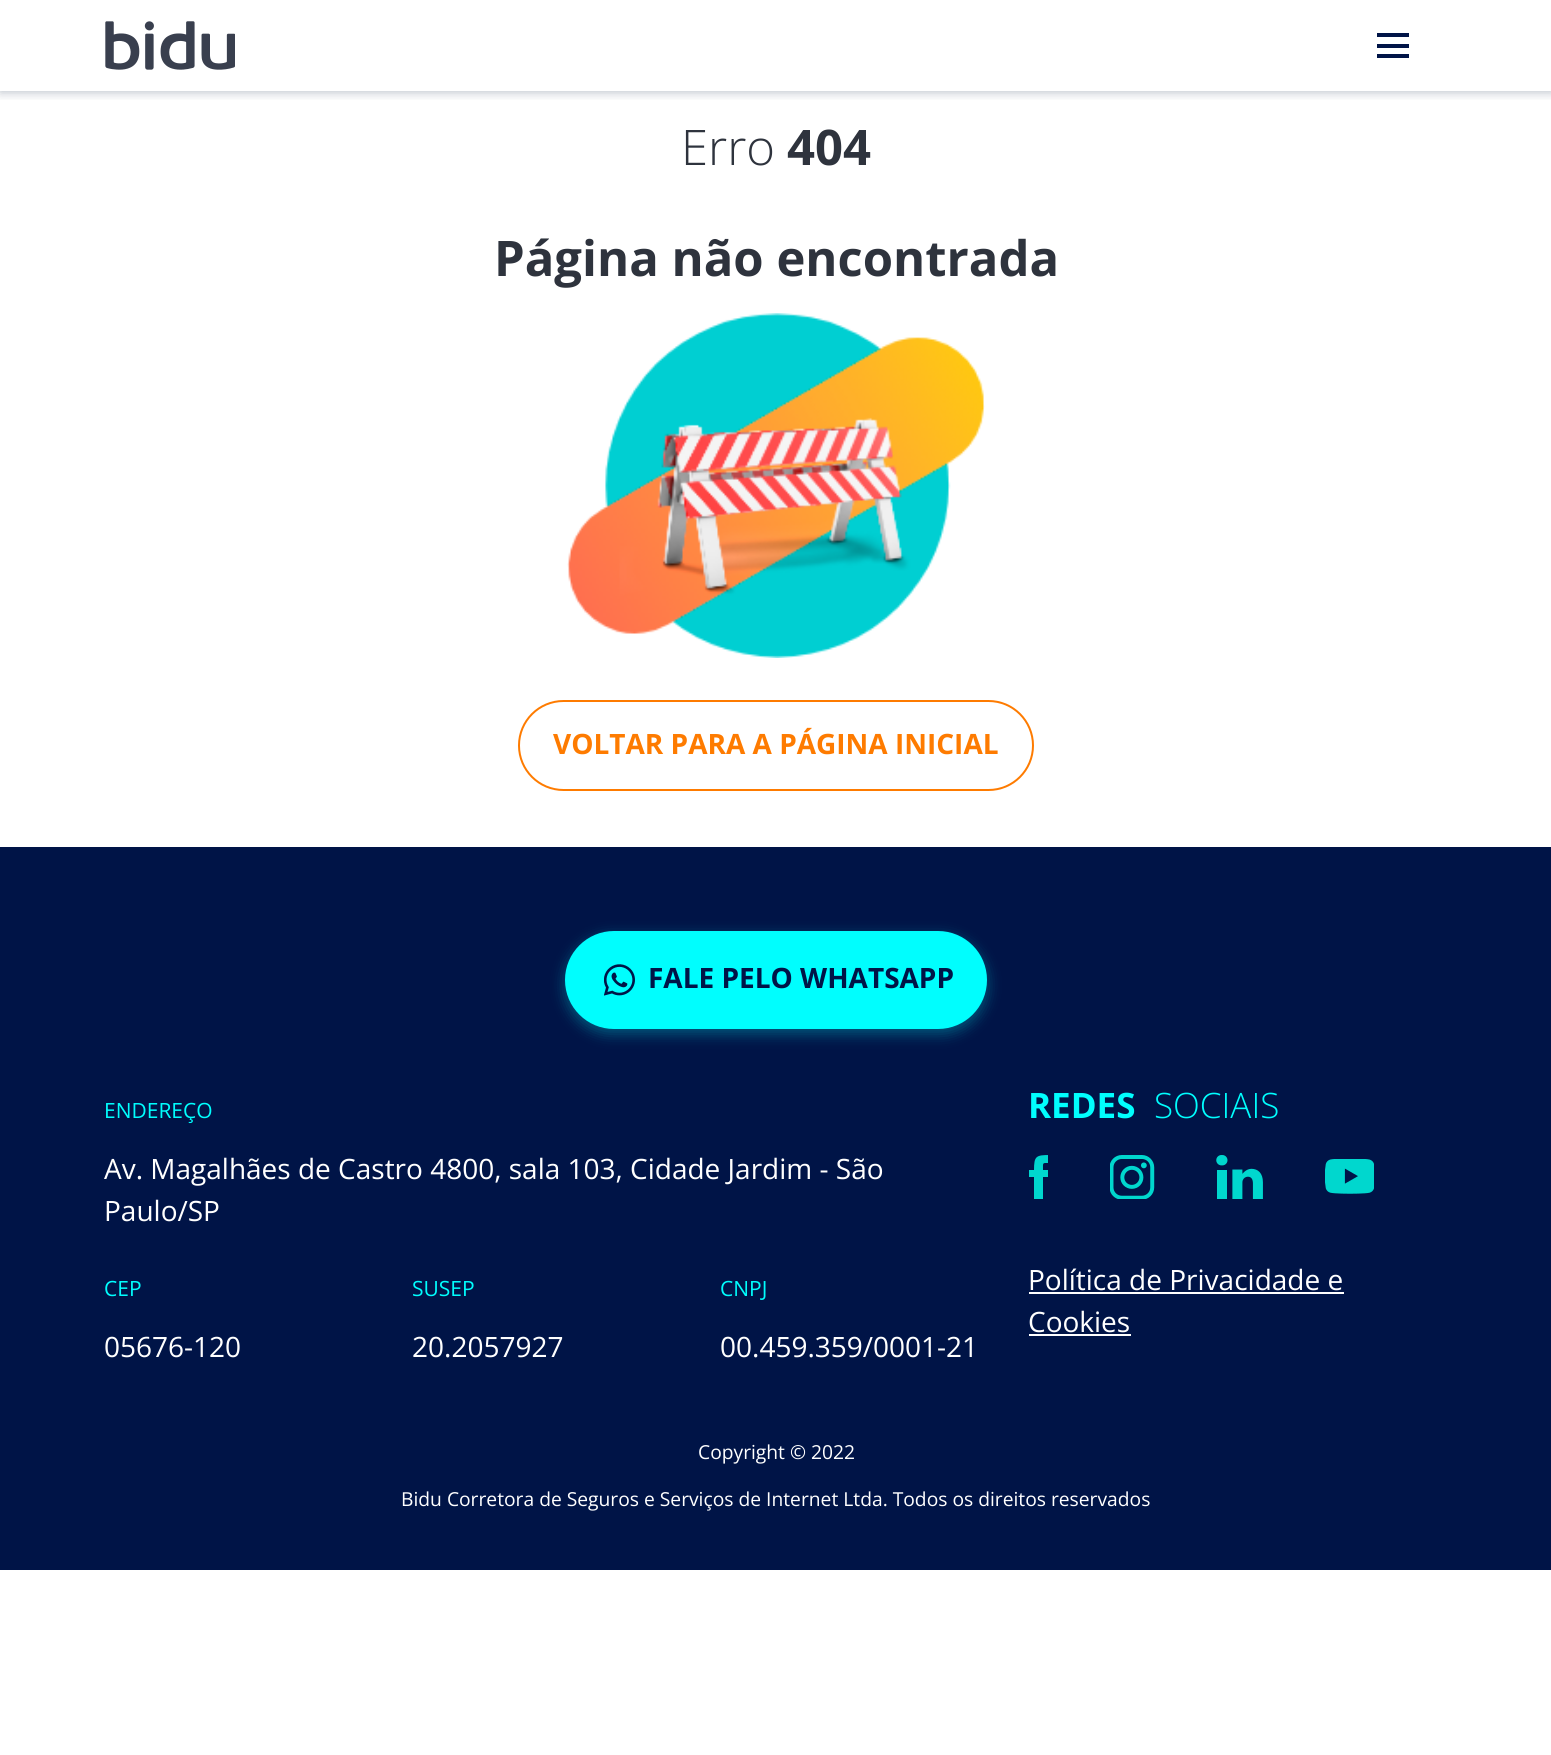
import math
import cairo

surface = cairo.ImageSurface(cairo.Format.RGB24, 1551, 1755)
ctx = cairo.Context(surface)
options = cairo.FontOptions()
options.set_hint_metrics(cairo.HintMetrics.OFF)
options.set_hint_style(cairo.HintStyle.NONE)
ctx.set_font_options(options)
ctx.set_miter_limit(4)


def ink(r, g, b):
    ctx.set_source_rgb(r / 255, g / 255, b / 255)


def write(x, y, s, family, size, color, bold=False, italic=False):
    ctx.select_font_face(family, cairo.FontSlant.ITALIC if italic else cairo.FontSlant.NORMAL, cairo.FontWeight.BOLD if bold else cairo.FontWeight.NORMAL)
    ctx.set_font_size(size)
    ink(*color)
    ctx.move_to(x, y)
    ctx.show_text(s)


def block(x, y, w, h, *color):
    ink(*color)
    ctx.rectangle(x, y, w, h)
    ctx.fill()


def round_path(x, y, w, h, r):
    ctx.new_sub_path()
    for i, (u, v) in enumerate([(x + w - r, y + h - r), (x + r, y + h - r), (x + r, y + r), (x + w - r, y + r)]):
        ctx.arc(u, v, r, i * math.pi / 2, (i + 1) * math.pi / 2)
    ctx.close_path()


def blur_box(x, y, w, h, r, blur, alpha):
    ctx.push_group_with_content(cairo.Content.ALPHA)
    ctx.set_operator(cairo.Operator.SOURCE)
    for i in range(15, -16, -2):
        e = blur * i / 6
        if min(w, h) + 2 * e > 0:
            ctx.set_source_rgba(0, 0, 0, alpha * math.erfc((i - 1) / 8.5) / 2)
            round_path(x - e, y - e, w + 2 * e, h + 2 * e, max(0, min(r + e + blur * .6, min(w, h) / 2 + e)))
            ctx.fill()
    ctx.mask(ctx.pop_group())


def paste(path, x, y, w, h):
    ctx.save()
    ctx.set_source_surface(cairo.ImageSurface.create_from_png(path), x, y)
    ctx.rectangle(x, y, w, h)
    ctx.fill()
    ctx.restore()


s1 = dict(family="Open Sans Light", size=49, color=(46, 51, 61))
s2 = dict(family="Open Sans", size=49, color=(46, 51, 61), bold=True)
s3 = dict(family="Open Sans", size=28, color=(254, 123, 0), bold=True)
s4 = dict(family="Open Sans", size=28, color=(0, 20, 71), bold=True)
s5 = dict(family="Open Sans", size=21, color=(0, 254, 254))
s6 = dict(family="Open Sans", size=28, color=(255, 255, 255))
s7 = dict(family="Open Sans", size=35, color=(0, 254, 254), bold=True)
s8 = dict(family="Open Sans Light", size=35, color=(0, 254, 254))
s9 = dict(family="Open Sans", size=19.25, color=(255, 255, 255))

ink(255, 255, 255)
ctx.paint()
ctx.save()
ctx.rectangle(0, 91, 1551, 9)
ctx.clip()
ink(9, 33, 63)
blur_box(0, 2, 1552, 91, 0, 5, 0.25)
ctx.restore()
paste("pic1.png", 105, 21, 130, 49)
block(1377, 33, 32, 4, 0, 20, 71)
block(1377, 44, 32, 4, 0, 20, 71)
block(1377, 54, 32, 4, 0, 20, 71)
write(681, 165, "Erro", **s1)
write(787, 165, "404", **s2)
write(494, 276, "Página não encontrada", **s2)
paste("pic2.png", 567, 313, 418, 345)
round_path(519, 701, 514, 89, 44.5)
ink(254, 123, 0)
ctx.stroke()
write(553, 754, "VOLTAR PARA A PÁGINA INICIAL", **s3)
block(0, 847, 1551, 723, 0, 20, 71)
ink(0, 254, 253)
blur_box(565, 936, 422, 98, 49, 7, 0.3)
ink(0, 254, 254)
round_path(565, 931, 422, 98, 49)
ctx.fill()
paste("pic3.png", 604, 964, 31, 32)
write(648, 988, "FALE PELO WHATSAPP", **s4)
write(104, 1118, "ENDEREÇO", **s5)
write(104, 1179, "Av. Magalhães de Castro 4800, sala 103, Cidade Jardim - São", **s6)
write(104, 1221, "Paulo/SP", **s6)
write(104, 1296, "CEP", **s5)
write(104, 1357, "05676-120", **s6)
write(412, 1296, "SUSEP", **s5)
write(412, 1357, "20.2057927", **s6)
write(720, 1296, "CNPJ", **s5)
write(720, 1357, "00.459.359/0001-21", **s6)
write(1028, 1118, "REDES", **s7)
write(1154, 1118, "SOCIAIS", **s8)
ctx.save()
ctx.rectangle(1029, 1155, 19, 44)
ctx.clip()
ink(0, 215, 206)
ctx.new_path()
ctx.move_to(1043, 1170)
ctx.curve_to(1043, 1162, 1042, 1163, 1050, 1163)
ctx.line_to(1050, 1155)
ctx.curve_to(1036, 1155, 1034, 1156, 1034, 1170)
ctx.line_to(1029, 1170)
ctx.line_to(1029, 1177)
ctx.line_to(1034, 1177)
ctx.line_to(1034, 1200)
ctx.line_to(1043, 1200)
ctx.line_to(1043, 1177)
ctx.line_to(1049, 1177)
ctx.line_to(1050, 1170)
ctx.close_path()
ctx.fill()
ctx.restore()
paste("pic4.png", 1110, 1155, 45, 44)
paste("pic5.png", 1216, 1155, 47, 44)
paste("pic6.png", 1325, 1159, 49, 35)
write(1028, 1290, "Política de Privacidade e", **s6)
block(1029, 1292, 315, 2, 255, 255, 255)
write(1028, 1332, "Cookies", **s6)
block(1029, 1334, 102, 2, 255, 255, 255)
write(698, 1459, "Copyright © 2022", **s9)
write(401, 1506, "Bidu Corretora de Seguros e Serviços de Internet Ltda. Todos os direitos reservados", **s9)
surface.write_to_png("screenshot.png")
